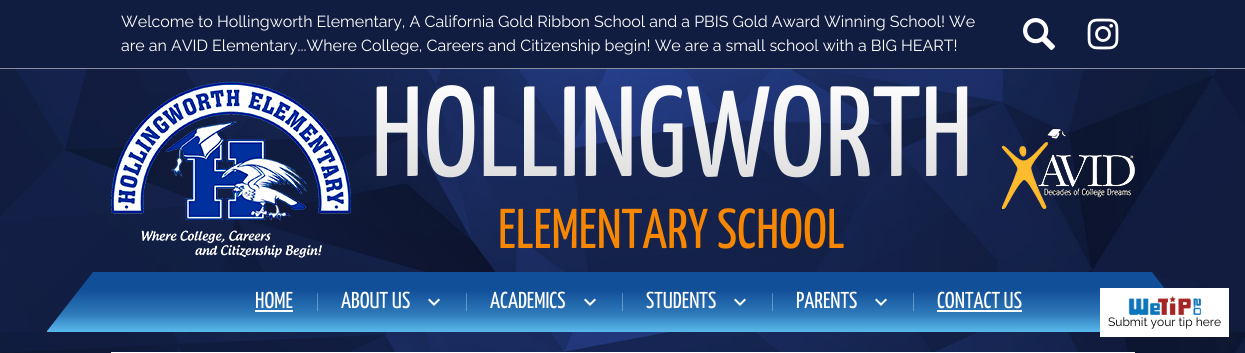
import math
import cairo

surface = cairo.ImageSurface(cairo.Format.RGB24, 1245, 353)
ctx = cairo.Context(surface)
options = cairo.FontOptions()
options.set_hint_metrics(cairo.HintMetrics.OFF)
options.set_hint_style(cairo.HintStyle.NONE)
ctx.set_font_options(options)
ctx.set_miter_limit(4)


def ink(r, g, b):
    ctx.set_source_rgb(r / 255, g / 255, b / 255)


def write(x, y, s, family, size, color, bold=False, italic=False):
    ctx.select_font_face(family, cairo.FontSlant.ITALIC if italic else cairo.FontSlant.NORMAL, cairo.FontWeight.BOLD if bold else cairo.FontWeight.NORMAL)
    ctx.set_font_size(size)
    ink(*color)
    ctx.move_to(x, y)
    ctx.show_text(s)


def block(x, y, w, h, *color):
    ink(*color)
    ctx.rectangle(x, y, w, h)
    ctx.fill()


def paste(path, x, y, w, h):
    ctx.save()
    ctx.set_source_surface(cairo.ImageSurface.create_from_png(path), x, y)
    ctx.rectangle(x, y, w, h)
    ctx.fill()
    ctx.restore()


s1 = dict(family="Raleway", size=16, color=(255, 255, 255))
s2 = dict(family="Yanone Kaffeesatz", size=56, color=(247, 134, 1))
s3 = dict(family="Yanone Kaffeesatz", size=23, color=(255, 255, 255))
s4 = dict(family="Raleway", size=12, color=(0, 0, 0))

ink(255, 255, 255)
ctx.paint()
paste("pic1.png", 0, 69, 1245, 263)
block(0, 0, 1245, 68, 17, 29, 64)
block(0, 68, 1245, 1, 136, 142, 160)
write(121, 27, "Welcome to Hollingworth Elementary, A California Gold Ribbon School and a PBIS Gold Award Winning School! We", **s1)
write(121, 51, "are an AVID Elementary...Where College, Careers and Citizenship begin! We are a small school with a BIG HEART!", **s1)
paste("pic2.png", 1023, 18, 32, 32)
paste("pic3.png", 1087, 18, 32, 32)
paste("pic4.png", 111, 82, 240, 176)
ctx.select_font_face("Yanone Kaffeesatz")
ctx.set_font_size(128)
gradient = cairo.LinearGradient(671, 79, 671, 206)
gradient.add_color_stop_rgba(0, 0.996, 0.996, 0.996, 1)
gradient.add_color_stop_rgba(1, 0.843, 0.843, 0.843, 1)
ctx.set_source(gradient)
ctx.move_to(371, 176)
ctx.show_text("HOLLINGWORTH")
write(498, 248, "ELEMENTARY SCHOOL", **s2)
paste("pic5.png", 1002, 129, 133, 80)
gradient = cairo.LinearGradient(623, 272, 623, 332)
gradient.add_color_stop_rgba(0, 0.071, 0.31, 0.604, 1)
gradient.add_color_stop_rgba(0.3, 0.071, 0.31, 0.6, 1)
gradient.add_color_stop_rgba(0.7, 0.18, 0.478, 0.729, 1)
gradient.add_color_stop_rgba(1, 0.349, 0.725, 0.925, 1)
ctx.set_source(gradient)
ctx.new_path()
ctx.move_to(93, 272)
ctx.line_to(47, 331)
ctx.line_to(47, 332)
ctx.line_to(1198, 332)
ctx.line_to(1152, 272)
ctx.close_path()
ctx.fill()
write(255, 308, "HOME", **s3)
block(255, 310, 38, 2, 255, 255, 255)
ctx.set_source_rgba(1, 1, 1, 0.3)
ctx.rectangle(317, 293, 1, 18)
ctx.fill()
write(341, 308, "ABOUT US", **s3)
paste("pic6.png", 428, 298, 12, 8)
ctx.set_source_rgba(1, 1, 1, 0.3)
ctx.rectangle(466, 293, 1, 18)
ctx.fill()
write(490, 308, "ACADEMICS", **s3)
paste("pic6.png", 584, 298, 12, 8)
ctx.set_source_rgba(1, 1, 1, 0.3)
ctx.rectangle(622, 293, 1, 18)
ctx.fill()
write(646, 308, "STUDENTS", **s3)
paste("pic6.png", 734, 298, 12, 8)
ctx.set_source_rgba(1, 1, 1, 0.3)
ctx.rectangle(772, 293, 1, 18)
ctx.fill()
write(796, 308, "PARENTS", **s3)
paste("pic6.png", 875, 298, 12, 8)
ctx.set_source_rgba(1, 1, 1, 0.3)
ctx.rectangle(913, 293, 1, 18)
ctx.fill()
write(937, 308, "CONTACT US", **s3)
block(937, 310, 85, 2, 255, 255, 255)
paste("pic8.png", 0, 332, 1245, 21)
block(1100, 288, 129, 49, 255, 255, 255)
paste("pic7.png", 1128, 296, 73, 19)
write(1108, 326, "Submit your tip here", **s4)
block(111, 352, 1024, 1, 255, 255, 255)
surface.write_to_png("screenshot.png")
